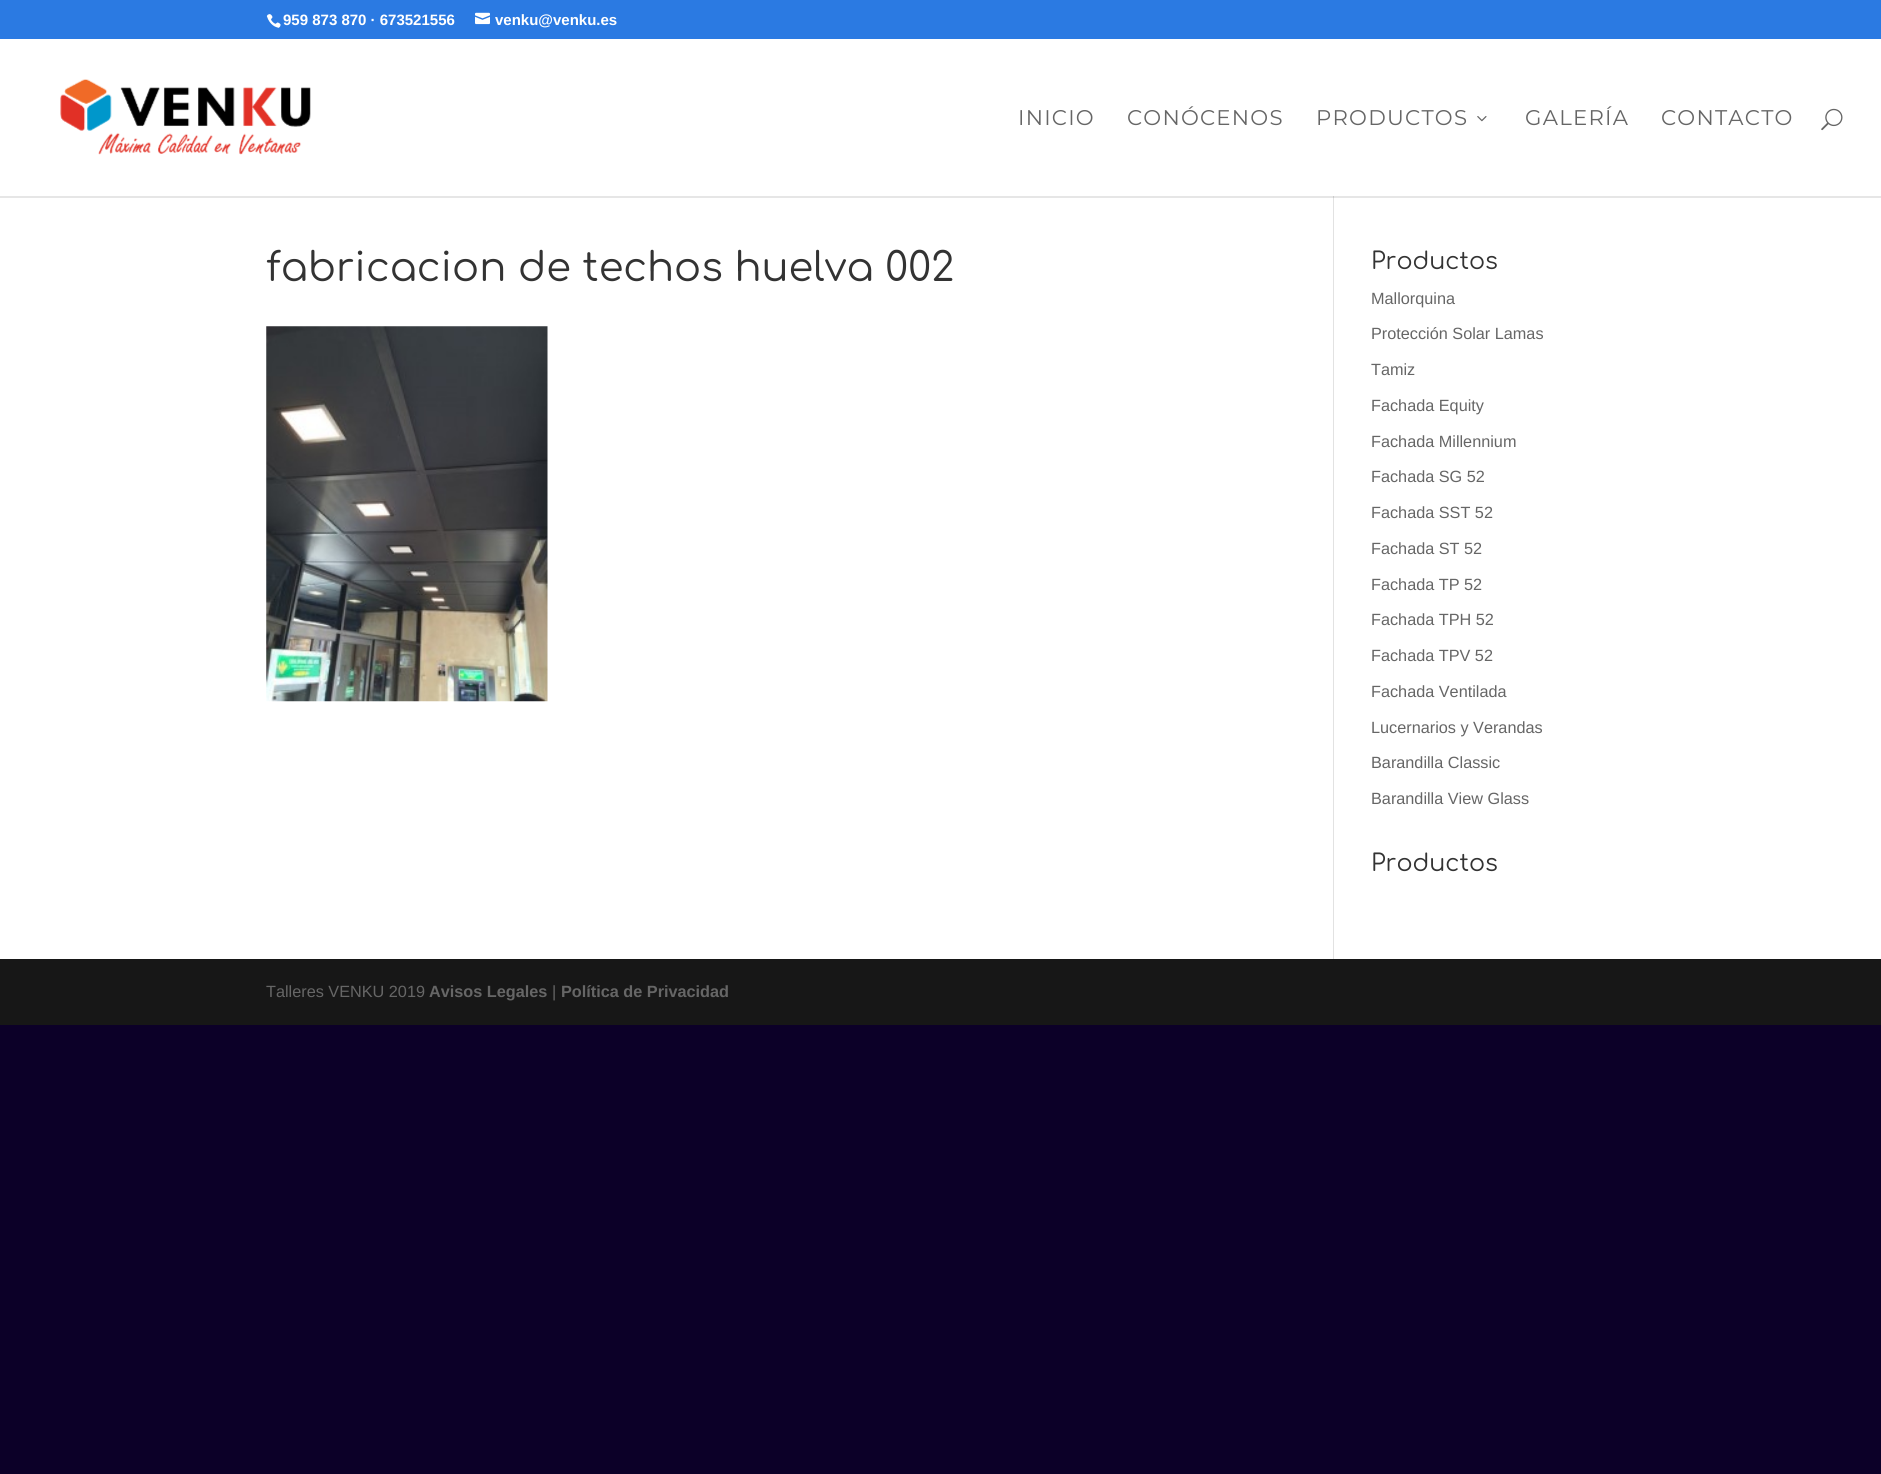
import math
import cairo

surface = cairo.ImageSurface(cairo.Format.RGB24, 1881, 1474)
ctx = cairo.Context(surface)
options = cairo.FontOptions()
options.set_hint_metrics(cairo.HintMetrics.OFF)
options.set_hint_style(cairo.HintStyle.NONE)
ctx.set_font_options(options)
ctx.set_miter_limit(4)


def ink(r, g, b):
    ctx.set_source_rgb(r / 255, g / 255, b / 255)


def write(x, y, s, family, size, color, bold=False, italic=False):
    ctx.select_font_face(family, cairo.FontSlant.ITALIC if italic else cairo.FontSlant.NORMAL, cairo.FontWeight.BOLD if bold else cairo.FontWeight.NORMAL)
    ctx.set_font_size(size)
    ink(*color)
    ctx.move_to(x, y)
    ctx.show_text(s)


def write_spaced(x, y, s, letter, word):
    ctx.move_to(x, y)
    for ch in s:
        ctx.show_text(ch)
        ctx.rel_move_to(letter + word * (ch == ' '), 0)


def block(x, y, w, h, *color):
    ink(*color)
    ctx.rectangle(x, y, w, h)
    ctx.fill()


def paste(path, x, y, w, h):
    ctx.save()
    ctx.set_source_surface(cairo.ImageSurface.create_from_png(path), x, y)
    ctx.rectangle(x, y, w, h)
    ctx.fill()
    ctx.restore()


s1 = dict(family="Arimo", size=15, color=(255, 255, 255), bold=True)
s2 = dict(family="Comfortaa", size=40, color=(51, 51, 51))
s3 = dict(family="Comfortaa", size=23.75, color=(51, 51, 51))
s4 = dict(family="Arimo", size=16.25, color=(102, 102, 102))
s5 = dict(family="Arimo", size=16.25, color=(102, 102, 102), bold=True)

ink(12, 0, 40)
ctx.paint()
block(0, 0, 1881, 39, 43, 122, 226)
paste("pic1.png", 266, 14, 15, 14)
write(283, 25, "959 873 870 · 673521556", **s1)
paste("pic2.png", 475, 12, 15, 13)
write(495, 25, "venku@venku.es", **s1)
block(0, 39, 1881, 157, 255, 255, 255)
paste("pic3.png", 60, 79, 251, 76)
ctx.select_font_face("Montserrat")
ctx.set_font_size(21.25)
ink(102, 102, 102)
write_spaced(1018, 125, "INICIO", 1.25, 0)
write_spaced(1127, 125, "CONÓCENOS", 1.25, 0)
write_spaced(1316, 125, "PRODUCTOS", 1.25, 0)
paste("pic4.png", 1477, 116, 10, 6)
write_spaced(1525, 125, "GALERÍA", 1.25, 0)
write_spaced(1661, 125, "CONTACTO", 1.25, 0)
paste("pic5.png", 1821, 108, 22, 23)
block(0, 198, 1881, 761, 255, 255, 255)
block(0, 196, 1881, 2, 230, 230, 230)
block(1333, 198, 1, 761, 226, 226, 226)
block(1333, 196, 1, 2, 203, 203, 203)
write(266, 281, "fabricacion de techos huelva 002", **s2)
paste("pic6.png", 266, 326, 282, 376)
write(1371, 269, "Productos", **s3)
write(1371, 304, "Mallorquina", **s4)
write(1371, 339, "Protección Solar Lamas", **s4)
write(1371, 375, "Tamiz", **s4)
write(1371, 411, "Fachada Equity", **s4)
write(1371, 447, "Fachada Millennium", **s4)
write(1371, 482, "Fachada SG 52", **s4)
write(1371, 518, "Fachada SST 52", **s4)
write(1371, 554, "Fachada ST 52", **s4)
write(1371, 590, "Fachada TP 52", **s4)
write(1371, 625, "Fachada TPH 52", **s4)
write(1371, 661, "Fachada TPV 52", **s4)
write(1371, 697, "Fachada Ventilada", **s4)
write(1371, 733, "Lucernarios y Verandas", **s4)
write(1371, 768, "Barandilla Classic", **s4)
write(1371, 804, "Barandilla View Glass", **s4)
write(1371, 871, "Productos", **s3)
block(0, 959, 1881, 66, 23, 23, 23)
write(266, 997, "Talleres VENKU 2019", **s4)
write(429, 997, "Avisos Legales", **s5)
write(552, 997, "|", **s4)
write(561, 997, "Política de Privacidad", **s5)
surface.write_to_png("screenshot.png")
